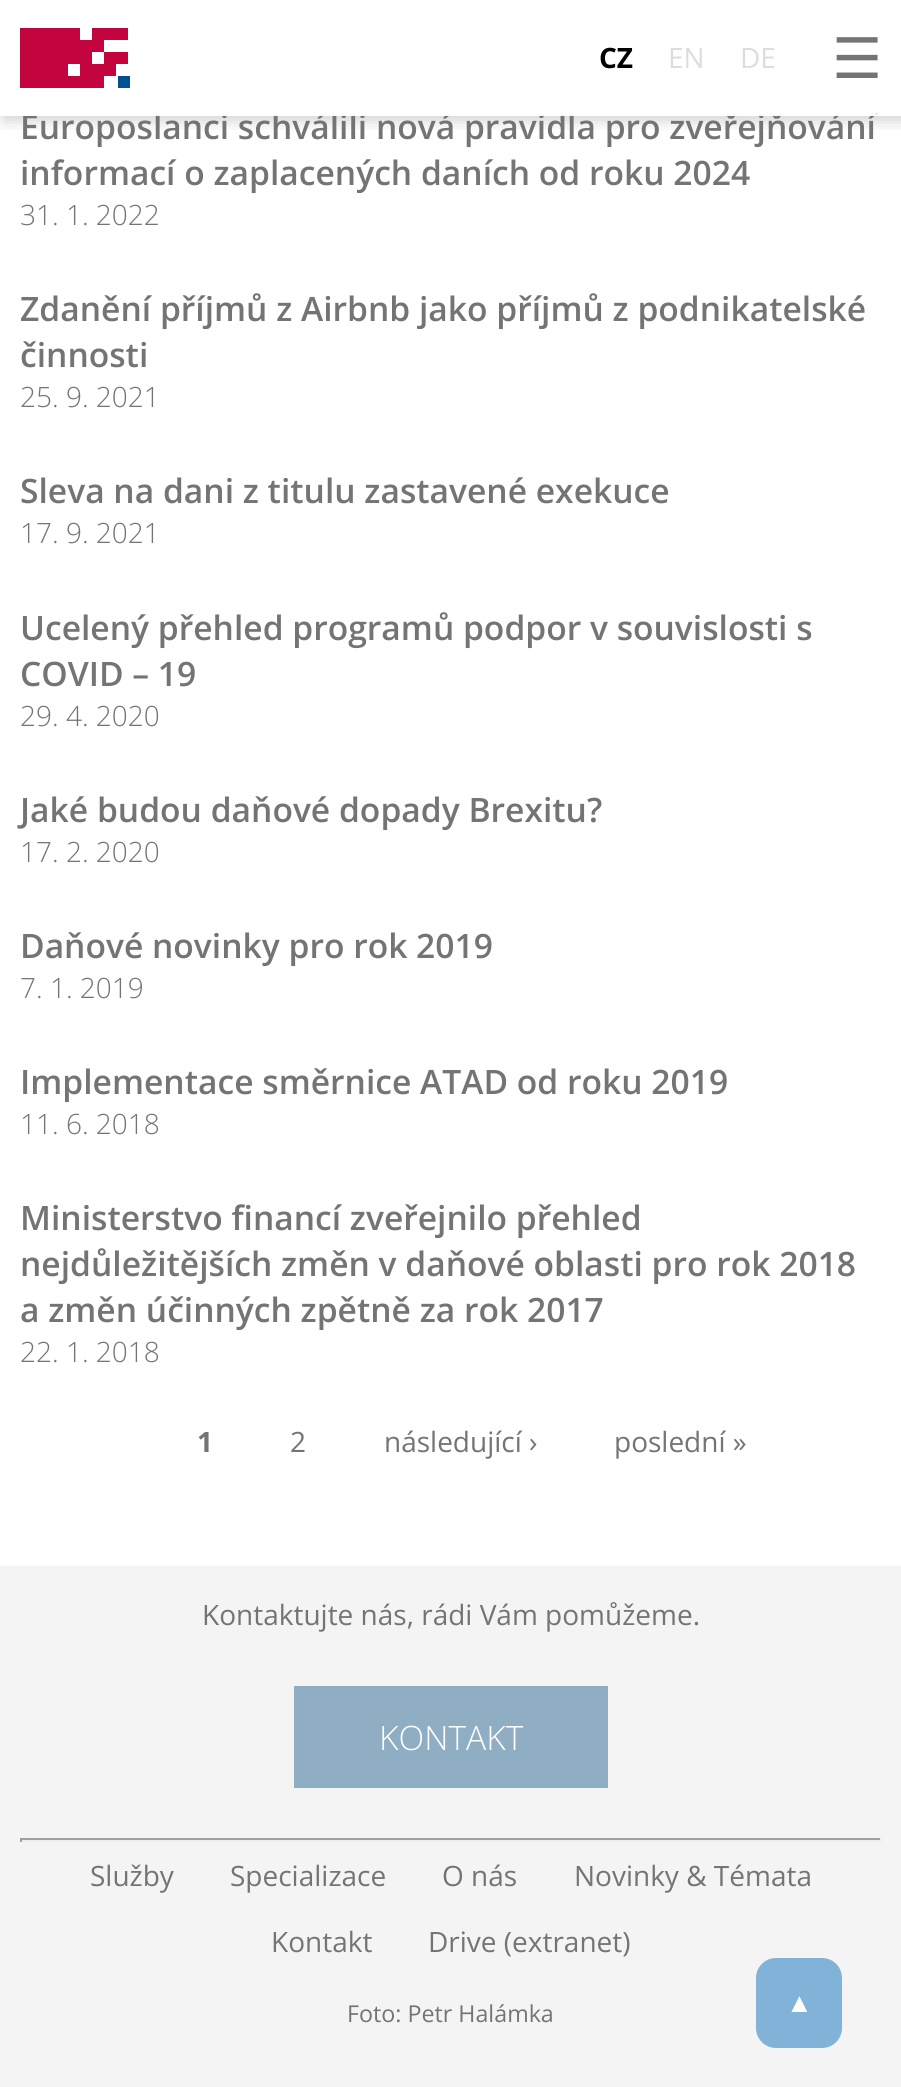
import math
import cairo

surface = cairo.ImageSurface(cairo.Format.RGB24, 901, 2087)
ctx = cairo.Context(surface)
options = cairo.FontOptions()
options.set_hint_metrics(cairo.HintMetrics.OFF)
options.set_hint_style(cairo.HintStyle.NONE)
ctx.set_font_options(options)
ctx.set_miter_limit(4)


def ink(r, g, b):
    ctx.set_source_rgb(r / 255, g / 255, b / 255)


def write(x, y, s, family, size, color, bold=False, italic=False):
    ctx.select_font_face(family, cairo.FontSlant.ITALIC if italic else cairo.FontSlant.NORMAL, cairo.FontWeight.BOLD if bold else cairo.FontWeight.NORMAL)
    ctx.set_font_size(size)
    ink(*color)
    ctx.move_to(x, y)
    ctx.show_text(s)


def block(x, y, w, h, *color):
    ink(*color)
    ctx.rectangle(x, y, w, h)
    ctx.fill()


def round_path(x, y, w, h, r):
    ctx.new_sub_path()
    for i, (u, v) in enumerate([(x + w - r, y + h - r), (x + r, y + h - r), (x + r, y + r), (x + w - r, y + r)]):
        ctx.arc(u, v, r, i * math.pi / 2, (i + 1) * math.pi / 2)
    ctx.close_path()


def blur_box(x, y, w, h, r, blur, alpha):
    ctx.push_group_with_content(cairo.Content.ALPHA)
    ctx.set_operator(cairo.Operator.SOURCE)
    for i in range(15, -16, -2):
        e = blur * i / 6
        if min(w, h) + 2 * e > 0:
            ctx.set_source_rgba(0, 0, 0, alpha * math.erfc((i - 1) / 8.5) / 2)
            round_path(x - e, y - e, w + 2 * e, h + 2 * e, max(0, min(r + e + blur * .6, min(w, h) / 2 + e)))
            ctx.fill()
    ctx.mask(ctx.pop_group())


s1 = dict(family="Open Sans SemiBold", size=33.6, color=(116, 116, 116))
s2 = dict(family="Open Sans", size=28, color=(0, 0, 0), bold=True)
s3 = dict(family="Open Sans", size=28, color=(221, 221, 221))
s4 = dict(family="DejaVu Sans", size=56, color=(116, 116, 116))
s5 = dict(family="Open Sans Light", size=28, color=(116, 116, 116))
s6 = dict(family="Open Sans", size=28, color=(116, 116, 116), bold=True)
s7 = dict(family="Open Sans", size=28, color=(116, 116, 116))
s8 = dict(family="Open Sans Light", size=33.6, color=(255, 255, 255))
s9 = dict(family="Open Sans", size=23.25, color=(116, 116, 116))
s10 = dict(family="Liberation Sans", size=27, color=(255, 255, 255))

ink(255, 255, 255)
ctx.paint()
ctx.save()
ctx.rectangle(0, 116, 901, 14)
ctx.clip()
ink(0, 0, 0)
blur_box(4, 4, 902, 116, 0, 8, 0.2)
ctx.restore()
write(20, 139, "Europoslanci schválili nová pravidla pro zveřejňování", **s1)
ctx.set_source_rgba(1, 1, 1, 0.95)
ctx.rectangle(23, 113, 853, 3)
ctx.fill()
ink(196, 4, 63)
ctx.new_path()
ctx.move_to(92, 28)
ctx.line_to(92, 40)
ctx.line_to(80, 40)
ctx.line_to(80, 28)
ctx.line_to(20, 28)
ctx.line_to(20, 88)
ctx.line_to(104, 88)
ctx.line_to(104, 76)
ctx.line_to(116, 76)
ctx.line_to(116, 64)
ctx.line_to(128, 64)
ctx.line_to(128, 52)
ctx.line_to(104, 52)
ctx.line_to(104, 64)
ctx.line_to(92, 64)
ctx.line_to(92, 52)
ctx.line_to(104, 52)
ctx.line_to(104, 40)
ctx.line_to(128, 40)
ctx.line_to(128, 28)
ctx.close_path()
ctx.move_to(68, 64)
ctx.line_to(80, 64)
ctx.line_to(80, 76)
ctx.line_to(68, 76)
ctx.close_path()
ctx.fill()
block(118, 76, 12, 12, 0, 80, 147)
write(599, 68, "CZ", **s2)
write(668, 68, "EN", **s3)
write(740, 68, "DE", **s3)
write(832, 78, "☰", **s4)
write(20, 185, "informací o zaplacených daních od roku 2024", **s1)
write(20, 225, "31. 1. 2022", **s5)
write(20, 321, "Zdanění příjmů z Airbnb jako příjmů z podnikatelské", **s1)
write(20, 367, "činnosti", **s1)
write(20, 407, "25. 9. 2021", **s5)
write(20, 503, "Sleva na dani z titulu zastavené exekuce", **s1)
write(20, 543, "17. 9. 2021", **s5)
write(20, 640, "Ucelený přehled programů podpor v souvislosti s", **s1)
write(20, 686, "COVID – 19", **s1)
write(20, 726, "29. 4. 2020", **s5)
write(20, 822, "Jaké budou daňové dopady Brexitu?", **s1)
write(20, 862, "17. 2. 2020", **s5)
write(20, 958, "Daňové novinky pro rok 2019", **s1)
write(20, 998, "7. 1. 2019", **s5)
write(20, 1094, "Implementace směrnice ATAD od roku 2019", **s1)
write(20, 1134, "11. 6. 2018", **s5)
write(20, 1230, "Ministerstvo financí zveřejnilo přehled", **s1)
write(20, 1276, "nejdůležitějších změn v daňové oblasti pro rok 2018", **s1)
write(20, 1322, "a změn účinných zpětně za rok 2017", **s1)
write(20, 1362, "22. 1. 2018", **s5)
write(197, 1452, "1", **s6)
write(290, 1452, "2", **s7)
write(384, 1452, "následující ›", **s7)
write(614, 1452, "poslední »", **s7)
block(0, 1566, 901, 521, 244, 244, 244)
write(202, 1625, "Kontaktujte nás, rádi Vám pomůžeme.", **s7)
block(294, 1686, 314, 102, 143, 174, 195)
write(379, 1750, "KONTAKT", **s8)
block(20, 1838, 862, 2, 159, 159, 159)
block(880, 1838, 2, 4, 238, 238, 238)
block(20, 1840, 862, 2, 238, 238, 238)
block(20, 1838, 2, 4, 159, 159, 159)
write(90, 1886, "Služby", **s7)
write(230, 1886, "Specializace", **s7)
write(442, 1886, "O nás", **s7)
write(574, 1886, "Novinky & Témata", **s7)
write(271, 1952, "Kontakt", **s7)
write(428, 1952, "Drive (extranet)", **s7)
write(347, 2022, "Foto: Petr Halámka", **s9)
ink(128, 179, 215)
round_path(756, 1958, 86, 90, 20)
ctx.fill()
write(786, 2012, "▲", **s10)
surface.write_to_png("screenshot.png")
